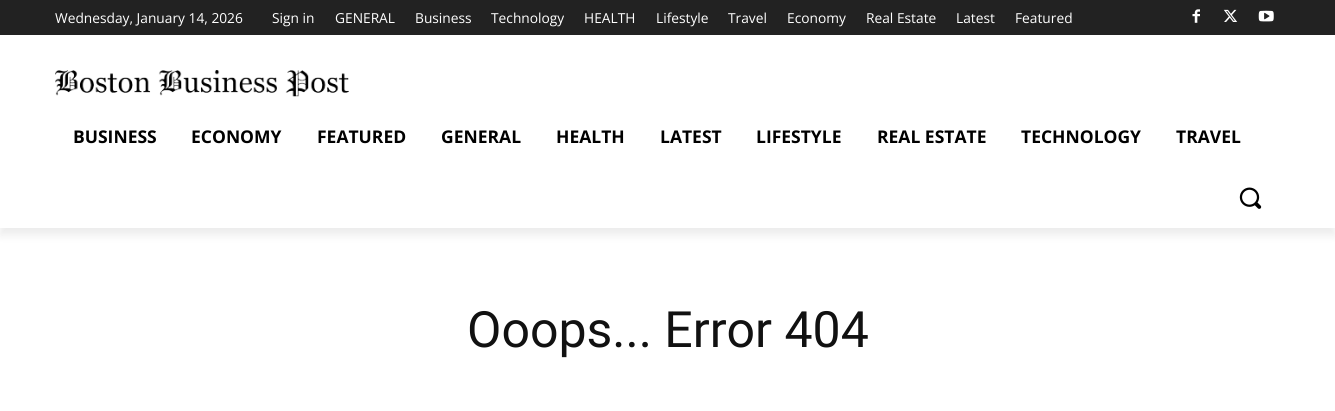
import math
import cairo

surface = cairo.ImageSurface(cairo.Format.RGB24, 1335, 411)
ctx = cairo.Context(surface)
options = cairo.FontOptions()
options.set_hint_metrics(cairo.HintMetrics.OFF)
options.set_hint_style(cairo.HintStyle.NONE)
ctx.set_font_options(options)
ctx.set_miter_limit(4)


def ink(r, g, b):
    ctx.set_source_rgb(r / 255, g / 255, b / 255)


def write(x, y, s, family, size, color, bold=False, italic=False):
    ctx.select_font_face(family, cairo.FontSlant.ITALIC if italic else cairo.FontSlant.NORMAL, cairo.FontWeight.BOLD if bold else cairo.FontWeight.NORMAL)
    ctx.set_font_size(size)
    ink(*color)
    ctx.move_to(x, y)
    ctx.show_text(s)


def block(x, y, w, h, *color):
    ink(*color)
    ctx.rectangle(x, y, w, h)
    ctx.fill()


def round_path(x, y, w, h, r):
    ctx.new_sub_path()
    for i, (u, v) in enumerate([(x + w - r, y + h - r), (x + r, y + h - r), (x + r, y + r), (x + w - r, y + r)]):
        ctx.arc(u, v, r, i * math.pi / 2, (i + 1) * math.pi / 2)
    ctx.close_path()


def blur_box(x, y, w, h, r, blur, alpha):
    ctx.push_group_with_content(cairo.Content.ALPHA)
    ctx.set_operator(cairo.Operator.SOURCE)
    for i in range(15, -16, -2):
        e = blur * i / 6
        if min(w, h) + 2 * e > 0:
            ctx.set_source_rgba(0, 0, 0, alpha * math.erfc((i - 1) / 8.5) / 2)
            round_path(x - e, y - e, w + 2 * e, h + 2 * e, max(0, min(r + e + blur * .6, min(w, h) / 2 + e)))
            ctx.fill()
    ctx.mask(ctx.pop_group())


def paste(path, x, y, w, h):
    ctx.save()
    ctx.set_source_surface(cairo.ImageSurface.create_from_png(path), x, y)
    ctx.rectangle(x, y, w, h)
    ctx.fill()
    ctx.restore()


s1 = dict(family="Open Sans", size=13.75, color=(255, 255, 255))
s2 = dict(family="Open Sans", size=17.5, color=(0, 0, 0), bold=True)
s3 = dict(family="Roboto", size=50, color=(17, 17, 17))

ink(255, 255, 255)
ctx.paint()
block(0, 0, 1335, 35, 34, 34, 34)
paste("pic1.png", 1192, 9, 8, 14)
paste("pic2.png", 1223, 9, 15, 13)
paste("pic3.png", 1258, 10, 16, 12)
paste("pic4.png", 55, 70, 294, 27)
ctx.save()
ctx.set_fill_rule(cairo.FillRule.EVEN_ODD)
ctx.new_path()
ctx.move_to(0, 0)
ctx.line_to(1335, 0)
ctx.line_to(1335, 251)
ctx.line_to(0, 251)
ctx.close_path()
ctx.move_to(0, 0)
ctx.line_to(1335, 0)
ctx.line_to(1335, 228)
ctx.line_to(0, 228)
ctx.close_path()
ctx.clip()
ink(0, 0, 0)
blur_box(0, 8, 1335, 227, 0, 5, 0.08)
ctx.restore()
write(55, 23, "Wednesday, January 14, 2026", **s1)
write(272, 23, "Sign in", **s1)
write(335, 23, "GENERAL", **s1)
write(415, 23, "Business", **s1)
write(491, 23, "Technology", **s1)
write(584, 23, "HEALTH", **s1)
write(656, 23, "Lifestyle", **s1)
write(728, 23, "Travel", **s1)
write(787, 23, "Economy", **s1)
write(866, 23, "Real Estate", **s1)
write(956, 23, "Latest", **s1)
write(1015, 23, "Featured", **s1)
write(73, 143, "BUSINESS", **s2)
write(191, 143, "ECONOMY", **s2)
write(317, 143, "FEATURED", **s2)
write(441, 143, "GENERAL", **s2)
write(556, 143, "HEALTH", **s2)
write(660, 143, "LATEST", **s2)
write(756, 143, "LIFESTYLE", **s2)
write(877, 143, "REAL ESTATE", **s2)
write(1021, 143, "TECHNOLOGY", **s2)
write(1176, 143, "TRAVEL", **s2)
paste("pic5.png", 1239, 187, 23, 22)
write(467, 347, "Ooops... Error 404", **s3)
surface.write_to_png("screenshot.png")
